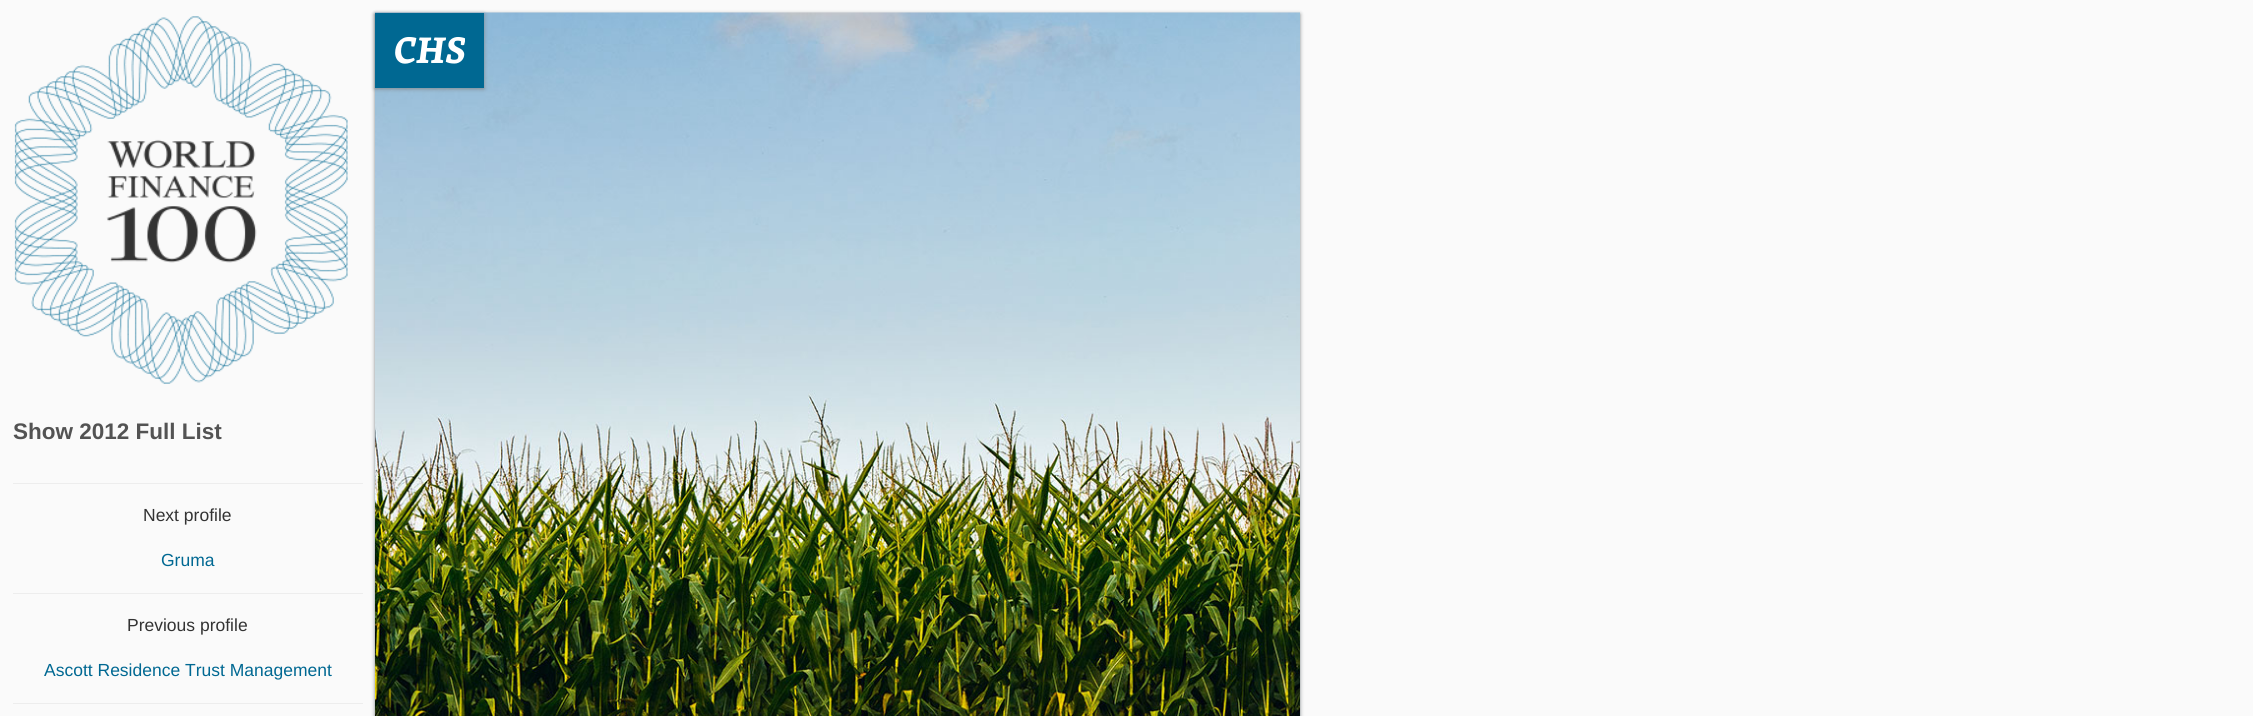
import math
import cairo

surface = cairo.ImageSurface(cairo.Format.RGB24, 2253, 716)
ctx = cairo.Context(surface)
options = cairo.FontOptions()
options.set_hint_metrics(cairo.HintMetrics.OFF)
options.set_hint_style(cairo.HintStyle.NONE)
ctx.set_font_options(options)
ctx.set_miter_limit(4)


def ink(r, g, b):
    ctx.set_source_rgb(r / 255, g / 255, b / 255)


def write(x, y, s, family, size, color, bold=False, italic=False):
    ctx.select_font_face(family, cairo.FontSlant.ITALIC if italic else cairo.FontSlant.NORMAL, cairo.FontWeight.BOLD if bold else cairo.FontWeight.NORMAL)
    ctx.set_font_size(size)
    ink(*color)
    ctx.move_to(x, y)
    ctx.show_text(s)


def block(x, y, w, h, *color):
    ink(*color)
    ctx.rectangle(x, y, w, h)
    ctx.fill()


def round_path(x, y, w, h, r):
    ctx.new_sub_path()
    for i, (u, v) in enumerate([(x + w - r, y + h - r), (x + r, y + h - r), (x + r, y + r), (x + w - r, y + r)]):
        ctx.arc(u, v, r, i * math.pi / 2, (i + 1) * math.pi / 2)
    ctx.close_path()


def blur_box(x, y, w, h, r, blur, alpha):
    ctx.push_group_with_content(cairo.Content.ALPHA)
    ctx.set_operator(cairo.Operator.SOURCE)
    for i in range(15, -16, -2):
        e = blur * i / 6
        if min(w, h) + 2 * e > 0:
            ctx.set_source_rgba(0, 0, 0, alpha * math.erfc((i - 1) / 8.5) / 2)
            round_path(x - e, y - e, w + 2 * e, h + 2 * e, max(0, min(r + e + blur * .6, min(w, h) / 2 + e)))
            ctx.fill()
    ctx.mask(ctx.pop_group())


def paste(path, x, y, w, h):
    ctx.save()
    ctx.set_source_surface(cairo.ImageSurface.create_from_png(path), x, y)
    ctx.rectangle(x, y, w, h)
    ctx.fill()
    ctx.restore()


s1 = dict(family="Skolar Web", size=38, color=(255, 255, 255), bold=True, italic=True)
s2 = dict(family="Liberation Sans", size=22.5, color=(83, 83, 83), bold=True)
s3 = dict(family="Liberation Sans", size=17.5, color=(51, 51, 51))
s4 = dict(family="Liberation Sans", size=17.5, color=(0, 104, 146))

ink(250, 250, 250)
ctx.paint()
ink(130, 136, 139)
blur_box(375, 14, 925, 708, 0, 2, 1)
paste("pic1.png", 375, 12, 925, 704)
blur_box(375, 14, 109, 75, 0, 2, 1)
block(375, 13, 109, 75, 0, 104, 146)
write(394, 63, "CHS", **s1)
paste("pic2.png", 14, 16, 334, 368)
write(13, 439, "Show 2012 Full List", **s2)
block(13, 483, 350, 1, 237, 237, 237)
block(13, 593, 350, 1, 237, 237, 237)
write(143, 521, "Next profile", **s3)
write(161, 566, "Gruma", **s4)
block(13, 703, 350, 1, 237, 237, 237)
write(127, 631, "Previous profile", **s3)
write(44, 676, "Ascott Residence Trust Management", **s4)
surface.write_to_png("screenshot.png")
